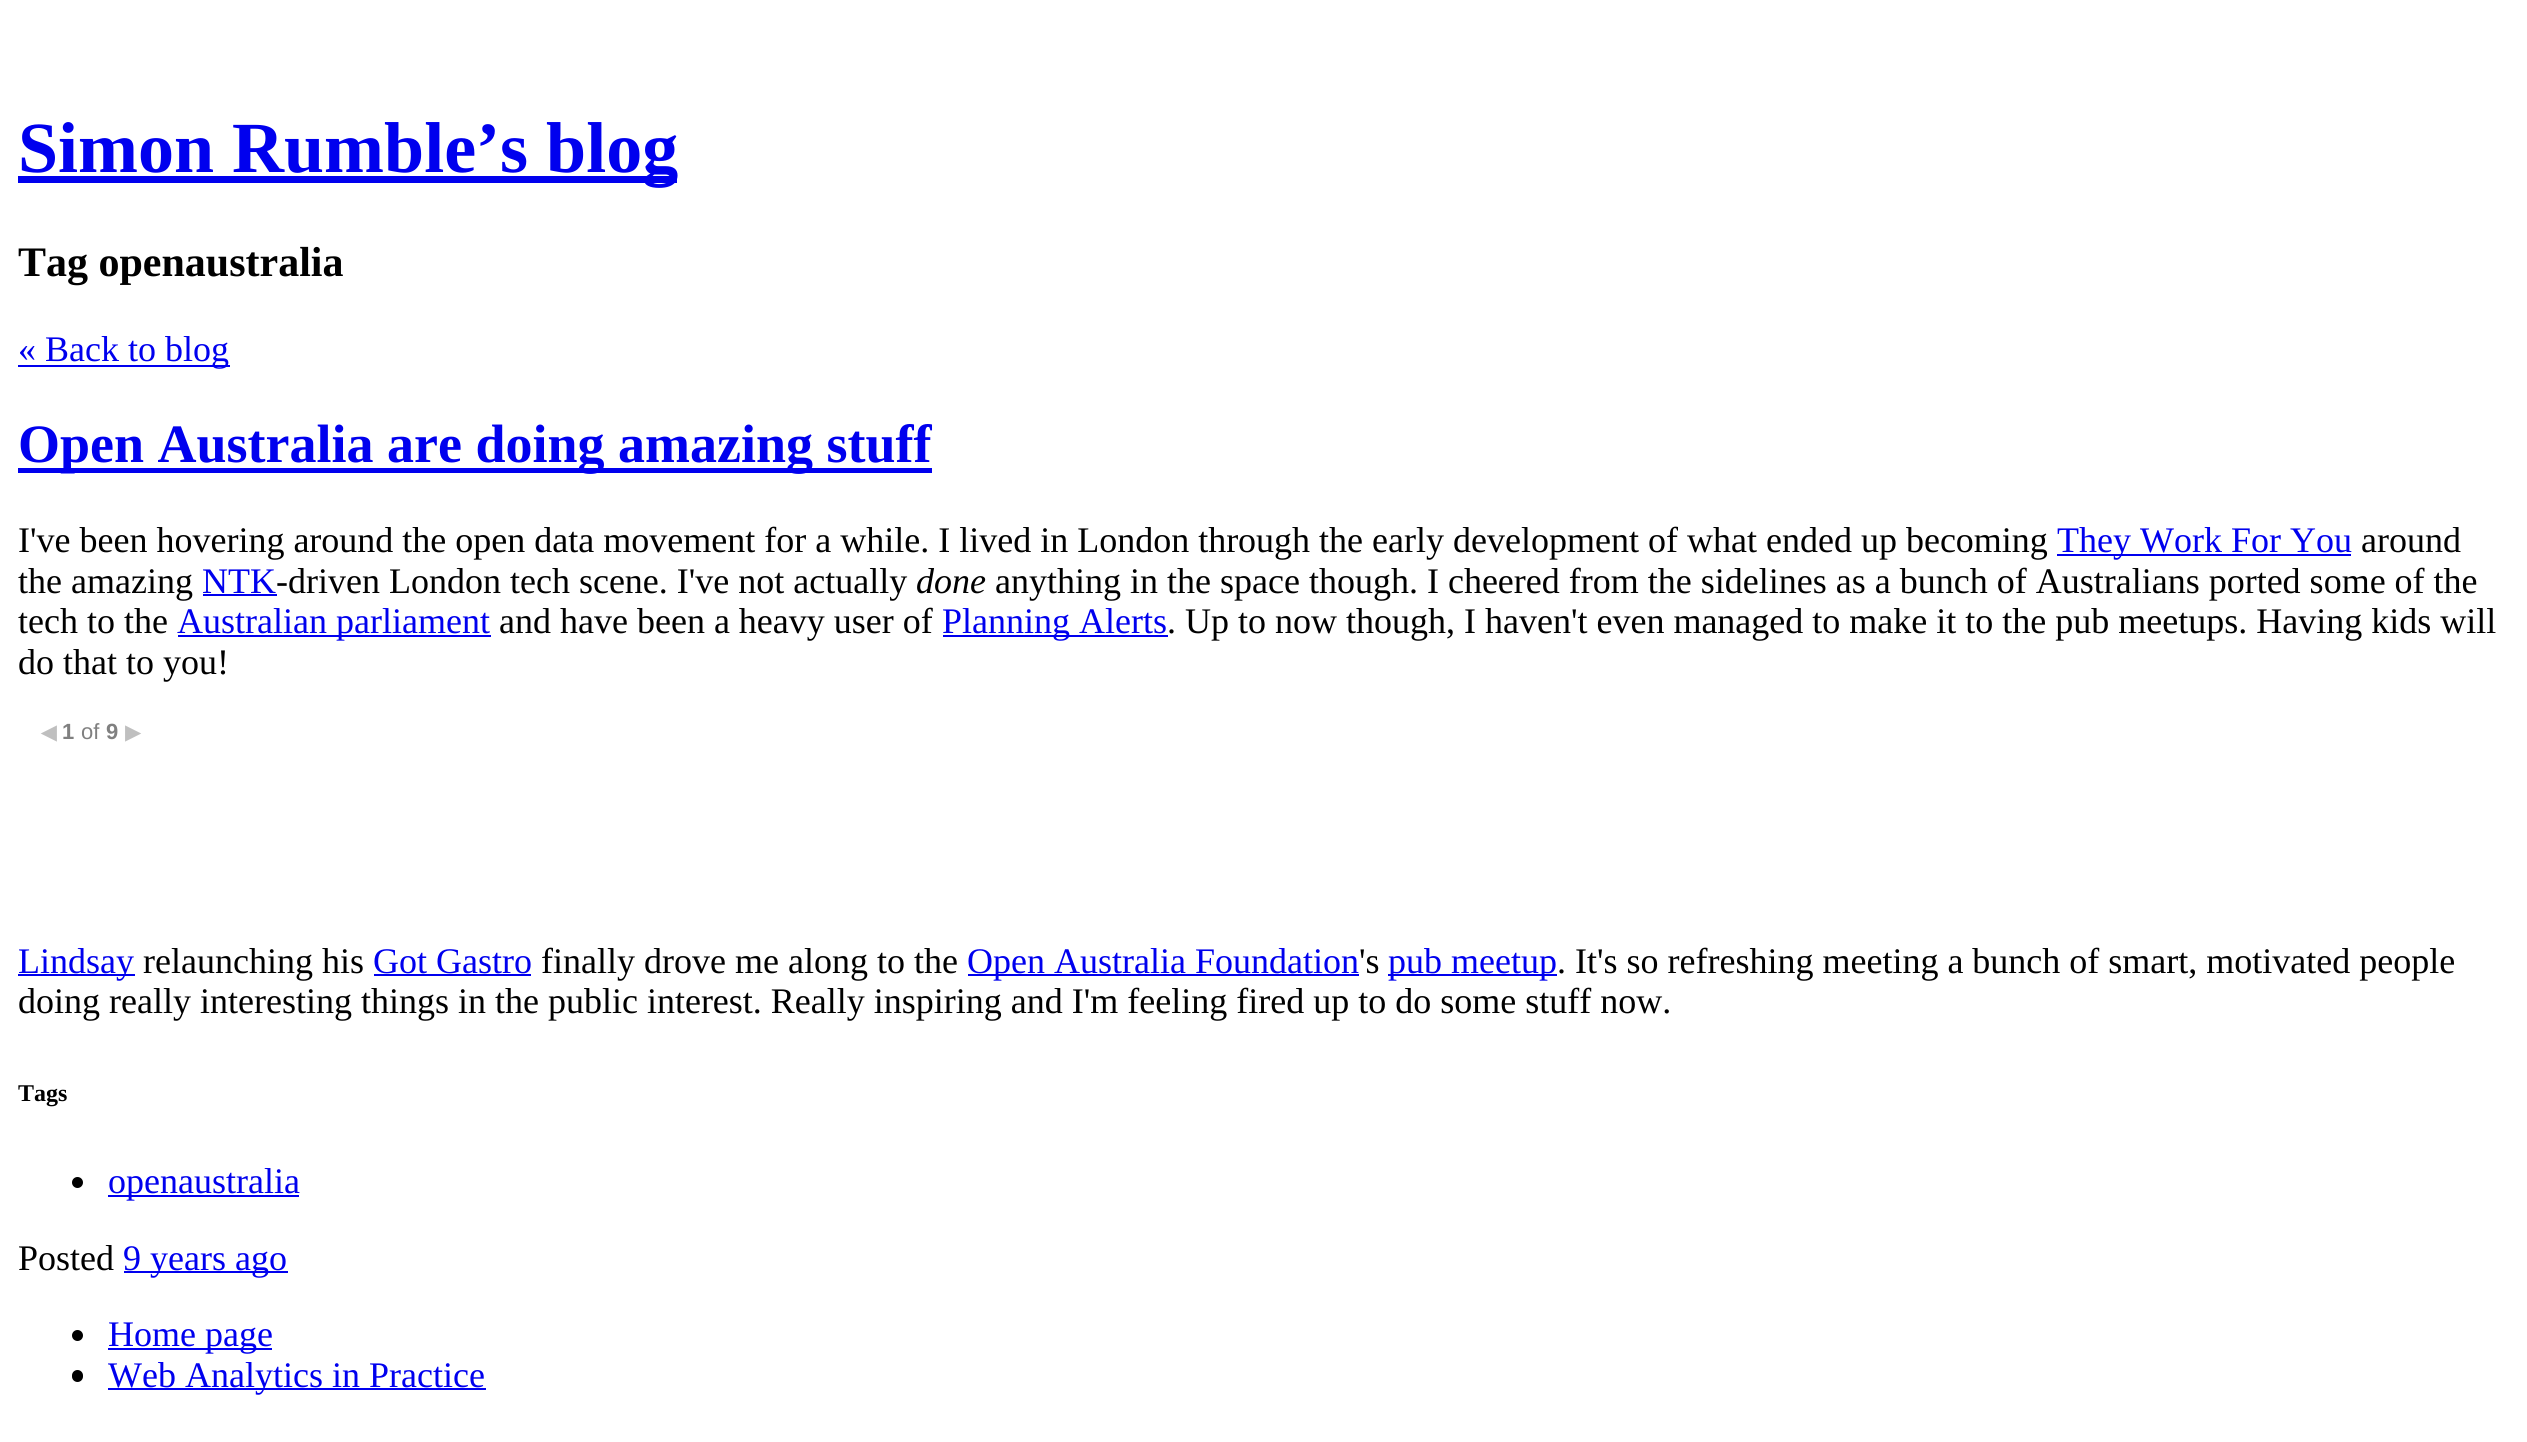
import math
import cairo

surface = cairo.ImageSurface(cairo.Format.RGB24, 2527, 1442)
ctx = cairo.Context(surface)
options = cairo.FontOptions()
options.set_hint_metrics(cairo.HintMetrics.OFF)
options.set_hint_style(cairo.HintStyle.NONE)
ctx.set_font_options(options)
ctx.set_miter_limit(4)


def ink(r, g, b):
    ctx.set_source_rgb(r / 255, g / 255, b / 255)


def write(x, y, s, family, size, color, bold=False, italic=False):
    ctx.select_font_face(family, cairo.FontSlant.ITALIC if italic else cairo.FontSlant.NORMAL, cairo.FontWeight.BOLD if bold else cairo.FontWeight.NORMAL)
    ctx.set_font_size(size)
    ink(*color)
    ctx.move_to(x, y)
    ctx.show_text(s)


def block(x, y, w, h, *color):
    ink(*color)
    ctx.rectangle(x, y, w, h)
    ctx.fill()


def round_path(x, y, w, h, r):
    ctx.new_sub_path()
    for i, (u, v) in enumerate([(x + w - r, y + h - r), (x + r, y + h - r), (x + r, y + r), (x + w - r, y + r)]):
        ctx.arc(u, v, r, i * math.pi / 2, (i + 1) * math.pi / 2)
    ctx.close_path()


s1 = dict(family="Liberation Serif", size=72, color=(0, 0, 238), bold=True)
s2 = dict(family="Liberation Serif", size=42, color=(0, 0, 0), bold=True)
s3 = dict(family="Liberation Serif", size=36, color=(0, 0, 238))
s4 = dict(family="Liberation Serif", size=54, color=(0, 0, 238), bold=True)
s5 = dict(family="Liberation Serif", size=36, color=(0, 0, 0))
s6 = dict(family="Liberation Serif", size=36, color=(0, 0, 0), italic=True)
s7 = dict(family="DejaVu Sans", size=20, color=(191, 191, 191), bold=True)
s8 = dict(family="Liberation Sans", size=22, color=(128, 128, 128), bold=True)
s9 = dict(family="Liberation Sans", size=22, color=(128, 128, 128))
s10 = dict(family="Liberation Serif", size=24, color=(0, 0, 0), bold=True)

ink(255, 255, 255)
ctx.paint()
block(18, 176, 659, 7, 0, 0, 238)
write(18, 172, "Simon Rumble’s blog", **s1)
write(18, 276, "Tag openaustralia", **s2)
block(18, 365, 212, 2, 0, 0, 238)
write(18, 361, "« Back to blog", **s3)
block(18, 468, 914, 5, 0, 0, 238)
write(18, 462, "Open Australia are doing amazing stuff", **s4)
write(18, 552, "I've been hovering around the open data movement for a while. I lived in London through the early development of what ended up becoming", **s5)
block(2057, 554, 294, 2, 0, 0, 238)
write(2057, 552, "They Work For You", **s3)
write(2361, 552, "around", **s5)
write(18, 593, "the amazing", **s5)
write(202, 593, "NTK", **s3)
block(203, 594, 74, 2, 0, 0, 238)
write(276, 593, "-driven London tech scene. I've not actually", **s5)
write(916, 593, "done", **s6)
write(995, 593, "anything in the space though. I cheered from the sidelines as a bunch of Australians ported some of the", **s5)
write(18, 633, "tech to the", **s5)
block(178, 635, 313, 2, 0, 0, 238)
write(177, 633, "Australian parliament", **s3)
write(499, 633, "and have been a heavy user of", **s5)
block(943, 635, 225, 2, 0, 0, 238)
write(942, 633, "Planning Alerts", **s3)
write(1167, 633, ". Up to now though, I haven't even managed to make it to the pub meetups. Having kids will", **s5)
write(18, 674, "do that to you!", **s5)
write(41, 739, "◀", **s7)
write(62, 739, "1", **s8)
write(81, 739, "of", **s9)
write(106, 739, "9", **s8)
write(125, 739, "▶", **s7)
block(18, 974, 117, 2, 0, 0, 238)
write(18, 973, "Lindsay", **s3)
write(143, 973, "relaunching his", **s5)
write(373, 973, "Got Gastro", **s3)
block(374, 974, 157, 2, 0, 0, 238)
write(541, 973, "finally drove me along to the", **s5)
block(968, 974, 391, 2, 0, 0, 238)
write(967, 973, "Open Australia Foundation", **s3)
write(1359, 973, "'s", **s5)
block(1388, 974, 169, 2, 0, 0, 238)
write(1388, 973, "pub meetup", **s3)
write(1557, 973, ". It's so refreshing meeting a bunch of smart, motivated people", **s5)
write(18, 1013, "doing really interesting things in the public interest. Really inspiring and I'm feeling fired up to do some stuff now.", **s5)
write(18, 1101, "Tags", **s10)
ctx.new_path()
ctx.arc(77.5, 1182.5, 5.5, 0, 2 * math.pi)
ctx.fill()
block(108, 1195, 191, 2, 0, 0, 238)
write(108, 1193, "openaustralia", **s3)
write(18, 1270, "Posted", **s5)
block(124, 1271, 164, 2, 0, 0, 238)
write(123, 1270, "9 years ago", **s3)
ink(0, 0, 0)
ctx.new_path()
ctx.arc(77.5, 1335.5, 5.5, 0, 2 * math.pi)
ctx.fill()
block(108, 1348, 164, 2, 0, 0, 238)
write(108, 1346, "Home page", **s3)
ink(0, 0, 0)
round_path(72, 1370, 11, 12, 5.5)
ctx.fill()
block(108, 1388, 378, 2, 0, 0, 238)
write(108, 1387, "Web Analytics in Practice", **s3)
surface.write_to_png("screenshot.png")
